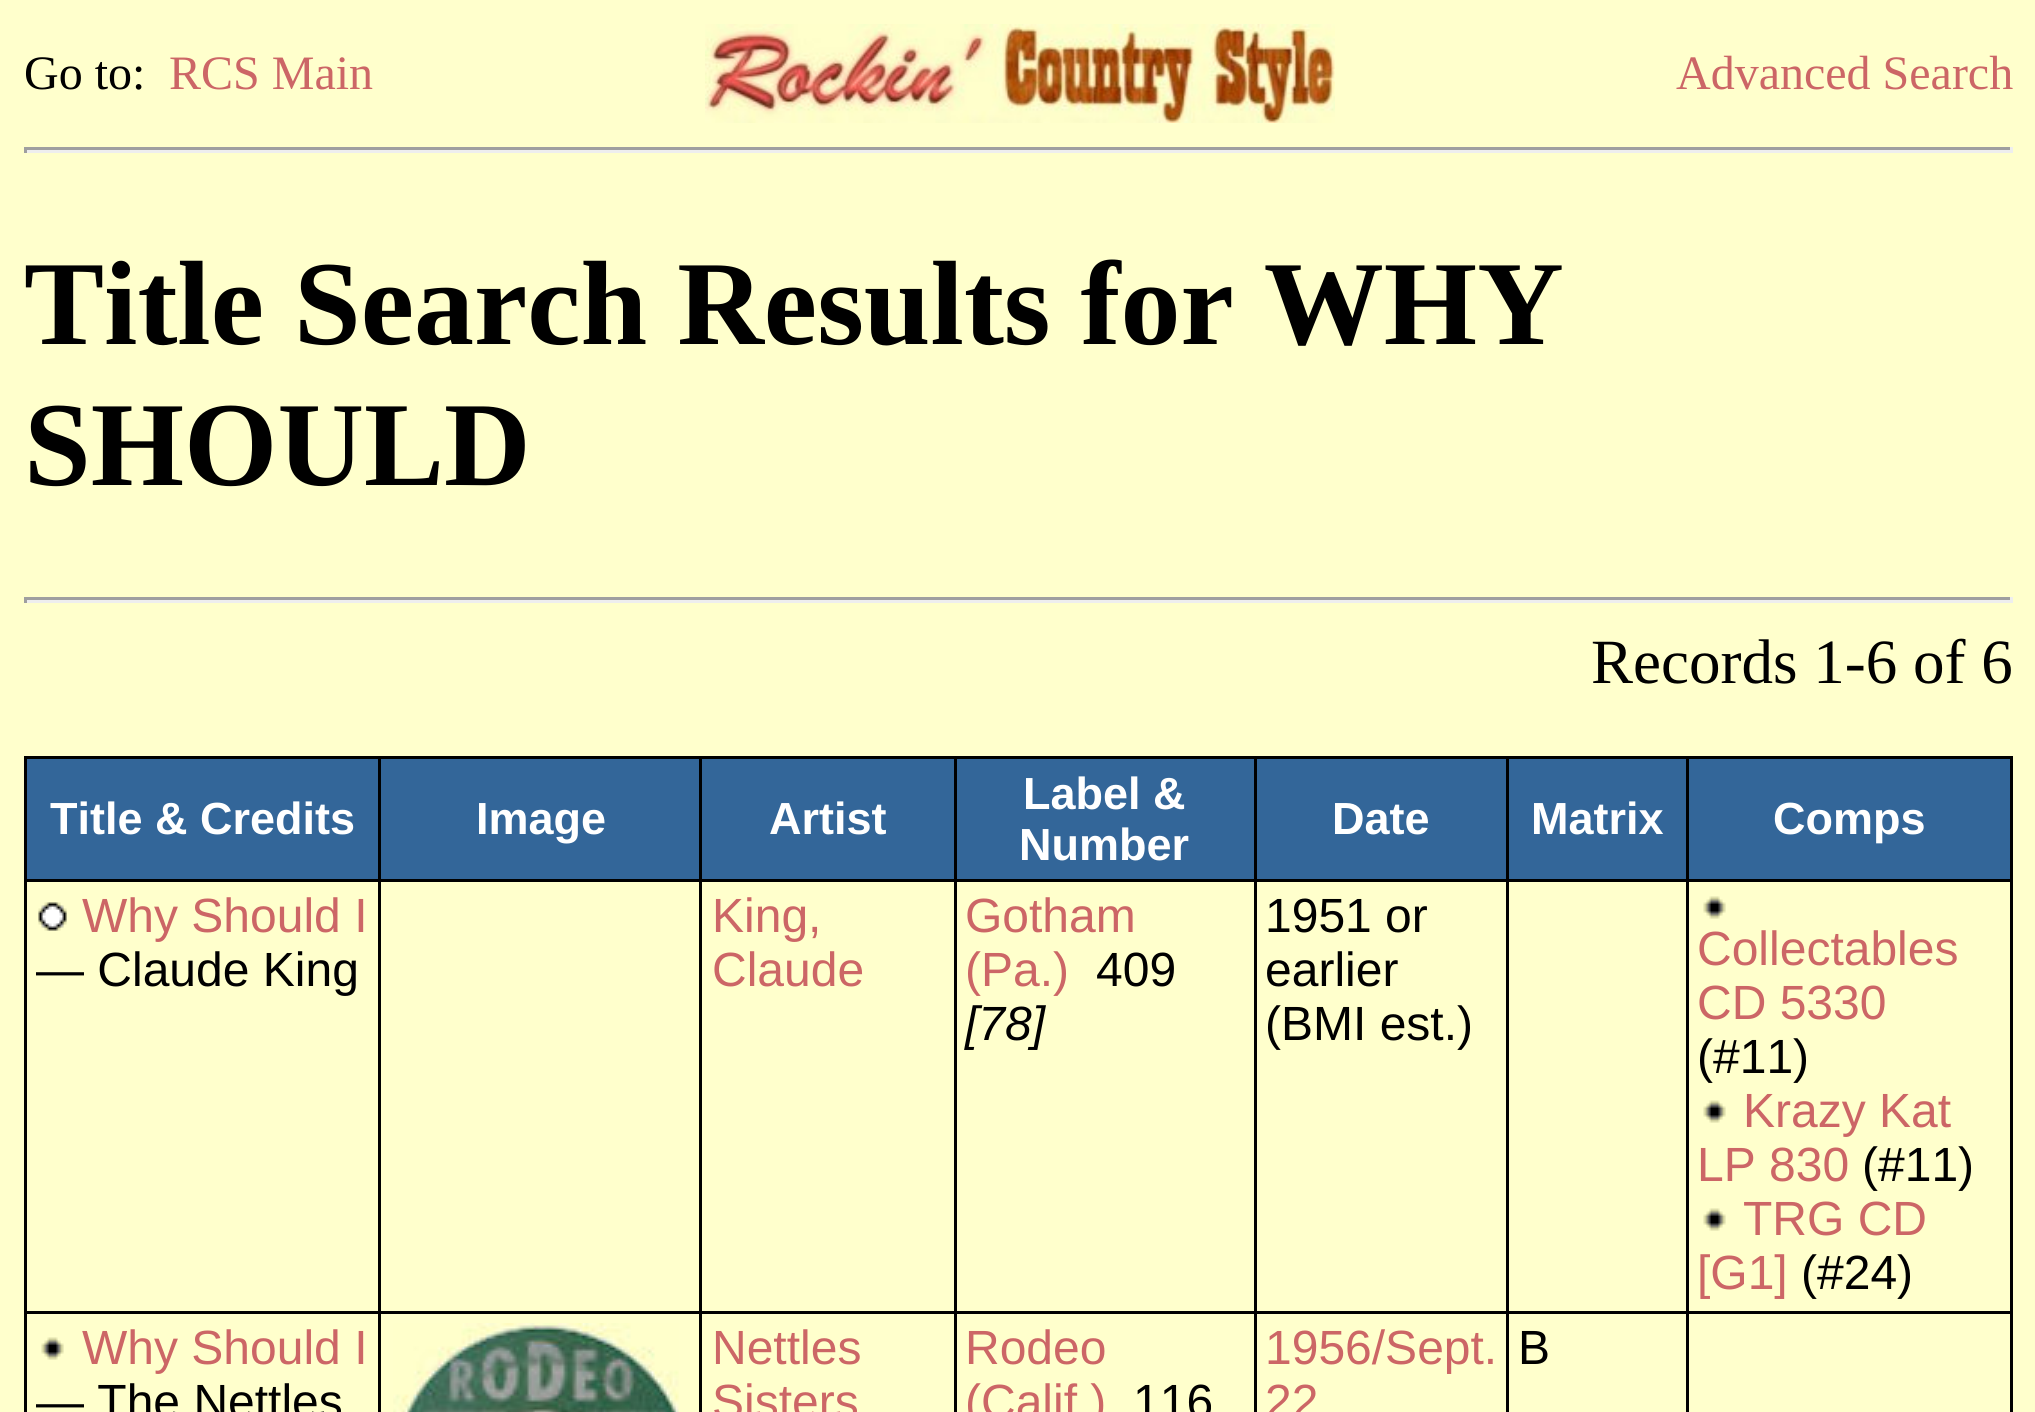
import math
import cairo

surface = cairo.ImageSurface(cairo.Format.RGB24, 2035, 1412)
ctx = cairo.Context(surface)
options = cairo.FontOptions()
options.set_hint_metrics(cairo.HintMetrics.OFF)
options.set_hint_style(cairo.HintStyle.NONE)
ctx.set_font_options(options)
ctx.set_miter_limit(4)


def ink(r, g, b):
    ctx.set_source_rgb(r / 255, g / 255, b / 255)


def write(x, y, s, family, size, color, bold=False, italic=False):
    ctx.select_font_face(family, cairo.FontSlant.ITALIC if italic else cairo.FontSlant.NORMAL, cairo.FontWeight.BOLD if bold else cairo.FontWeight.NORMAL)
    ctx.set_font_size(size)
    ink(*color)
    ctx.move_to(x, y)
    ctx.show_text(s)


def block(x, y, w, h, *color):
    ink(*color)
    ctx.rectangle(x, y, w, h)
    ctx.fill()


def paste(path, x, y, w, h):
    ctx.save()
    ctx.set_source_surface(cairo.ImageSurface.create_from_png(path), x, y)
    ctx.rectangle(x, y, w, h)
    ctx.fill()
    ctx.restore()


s1 = dict(family="Liberation Serif", size=48, color=(0, 0, 0))
s2 = dict(family="Liberation Serif", size=48, color=(204, 102, 102))
s3 = dict(family="Liberation Serif", size=120, color=(0, 0, 0), bold=True)
s4 = dict(family="Liberation Serif", size=63, color=(0, 0, 0))
s5 = dict(family="Liberation Sans", size=45, color=(255, 255, 255), bold=True)
s6 = dict(family="Liberation Sans", size=48, color=(204, 102, 102))
s7 = dict(family="Liberation Sans", size=48, color=(0, 0, 0))
s8 = dict(family="Liberation Sans", size=48, color=(0, 0, 0), italic=True)

ink(255, 255, 204)
ctx.paint()
write(24, 89, "Go to:", **s1)
write(169, 89, "RCS Main", **s2)
paste("pic1.png", 705, 24, 630, 99)
write(1676, 89, "Advanced Search", **s2)
block(24, 147, 1989, 3, 159, 159, 159)
block(2010, 147, 3, 6, 238, 238, 238)
block(24, 150, 1989, 3, 238, 238, 238)
block(24, 147, 3, 6, 159, 159, 159)
write(24, 344, "Title Search Results for WHY", **s3)
write(24, 485, "SHOULD", **s3)
block(24, 597, 1989, 3, 159, 159, 159)
block(2010, 597, 3, 6, 238, 238, 238)
block(24, 600, 1989, 3, 238, 238, 238)
block(24, 597, 3, 6, 159, 159, 159)
write(1591, 683, "Records 1-6 of 6", **s4)
block(24, 756, 1989, 3, 0, 0, 0)
block(2010, 756, 3, 656, 0, 0, 0)
block(24, 756, 3, 656, 0, 0, 0)
block(24, 879, 1989, 3, 0, 0, 0)
block(24, 1311, 1989, 3, 0, 0, 0)
block(378, 756, 3, 656, 0, 0, 0)
block(699, 756, 3, 656, 0, 0, 0)
block(954, 756, 3, 656, 0, 0, 0)
block(1254, 756, 3, 656, 0, 0, 0)
block(1686, 756, 3, 656, 0, 0, 0)
block(1506, 756, 3, 656, 0, 0, 0)
block(27, 759, 351, 120, 51, 102, 153)
write(50, 834, "Title & Credits", **s5)
block(381, 759, 318, 120, 51, 102, 153)
write(476, 834, "Image", **s5)
block(702, 759, 252, 120, 51, 102, 153)
write(769, 834, "Artist", **s5)
block(957, 759, 297, 120, 51, 102, 153)
write(1023, 809, "Label &", **s5)
write(1019, 860, "Number", **s5)
block(1257, 759, 249, 120, 51, 102, 153)
write(1332, 834, "Date", **s5)
block(1509, 759, 177, 120, 51, 102, 153)
write(1531, 834, "Matrix", **s5)
block(1689, 759, 321, 120, 51, 102, 153)
write(1773, 834, "Comps", **s5)
paste("pic2.png", 38, 902, 29, 29)
write(82, 932, "Why Should I", **s6)
write(36, 986, "— Claude King", **s7)
write(712, 932, "King,", **s6)
write(712, 986, "Claude", **s6)
write(965, 932, "Gotham", **s6)
write(965, 986, "(Pa.)", **s6)
write(1096, 986, "409", **s7)
write(965, 1040, "[78]", **s8)
write(1265, 932, "1951 or", **s7)
write(1265, 986, "earlier", **s7)
write(1265, 1040, "(BMI est.)", **s7)
paste("pic3.png", 1703, 896, 23, 23)
write(1697, 965, "Collectables", **s6)
write(1697, 1019, "CD 5330", **s6)
write(1697, 1073, "(#11)", **s7)
paste("pic3.png", 1703, 1100, 23, 23)
write(1743, 1127, "Krazy Kat", **s6)
write(1697, 1181, "LP 830", **s6)
write(1862, 1181, "(#11)", **s7)
paste("pic3.png", 1703, 1208, 23, 23)
write(1743, 1235, "TRG CD", **s6)
write(1697, 1289, "[G1]", **s6)
write(1801, 1289, "(#24)", **s7)
paste("pic3.png", 41, 1337, 23, 23)
write(82, 1364, "Why Should I", **s6)
write(36, 1418, "— The Nettles", **s7)
paste("pic4.png", 393, 1323, 286, 89)
write(712, 1364, "Nettles", **s6)
write(712, 1418, "Sisters", **s6)
write(965, 1364, "Rodeo", **s6)
write(965, 1418, "(Calif.)", **s6)
write(1133, 1418, "116", **s7)
write(1265, 1364, "1956/Sept.", **s6)
write(1265, 1418, "22", **s6)
write(1518, 1364, "B", **s7)
surface.write_to_png("screenshot.png")
